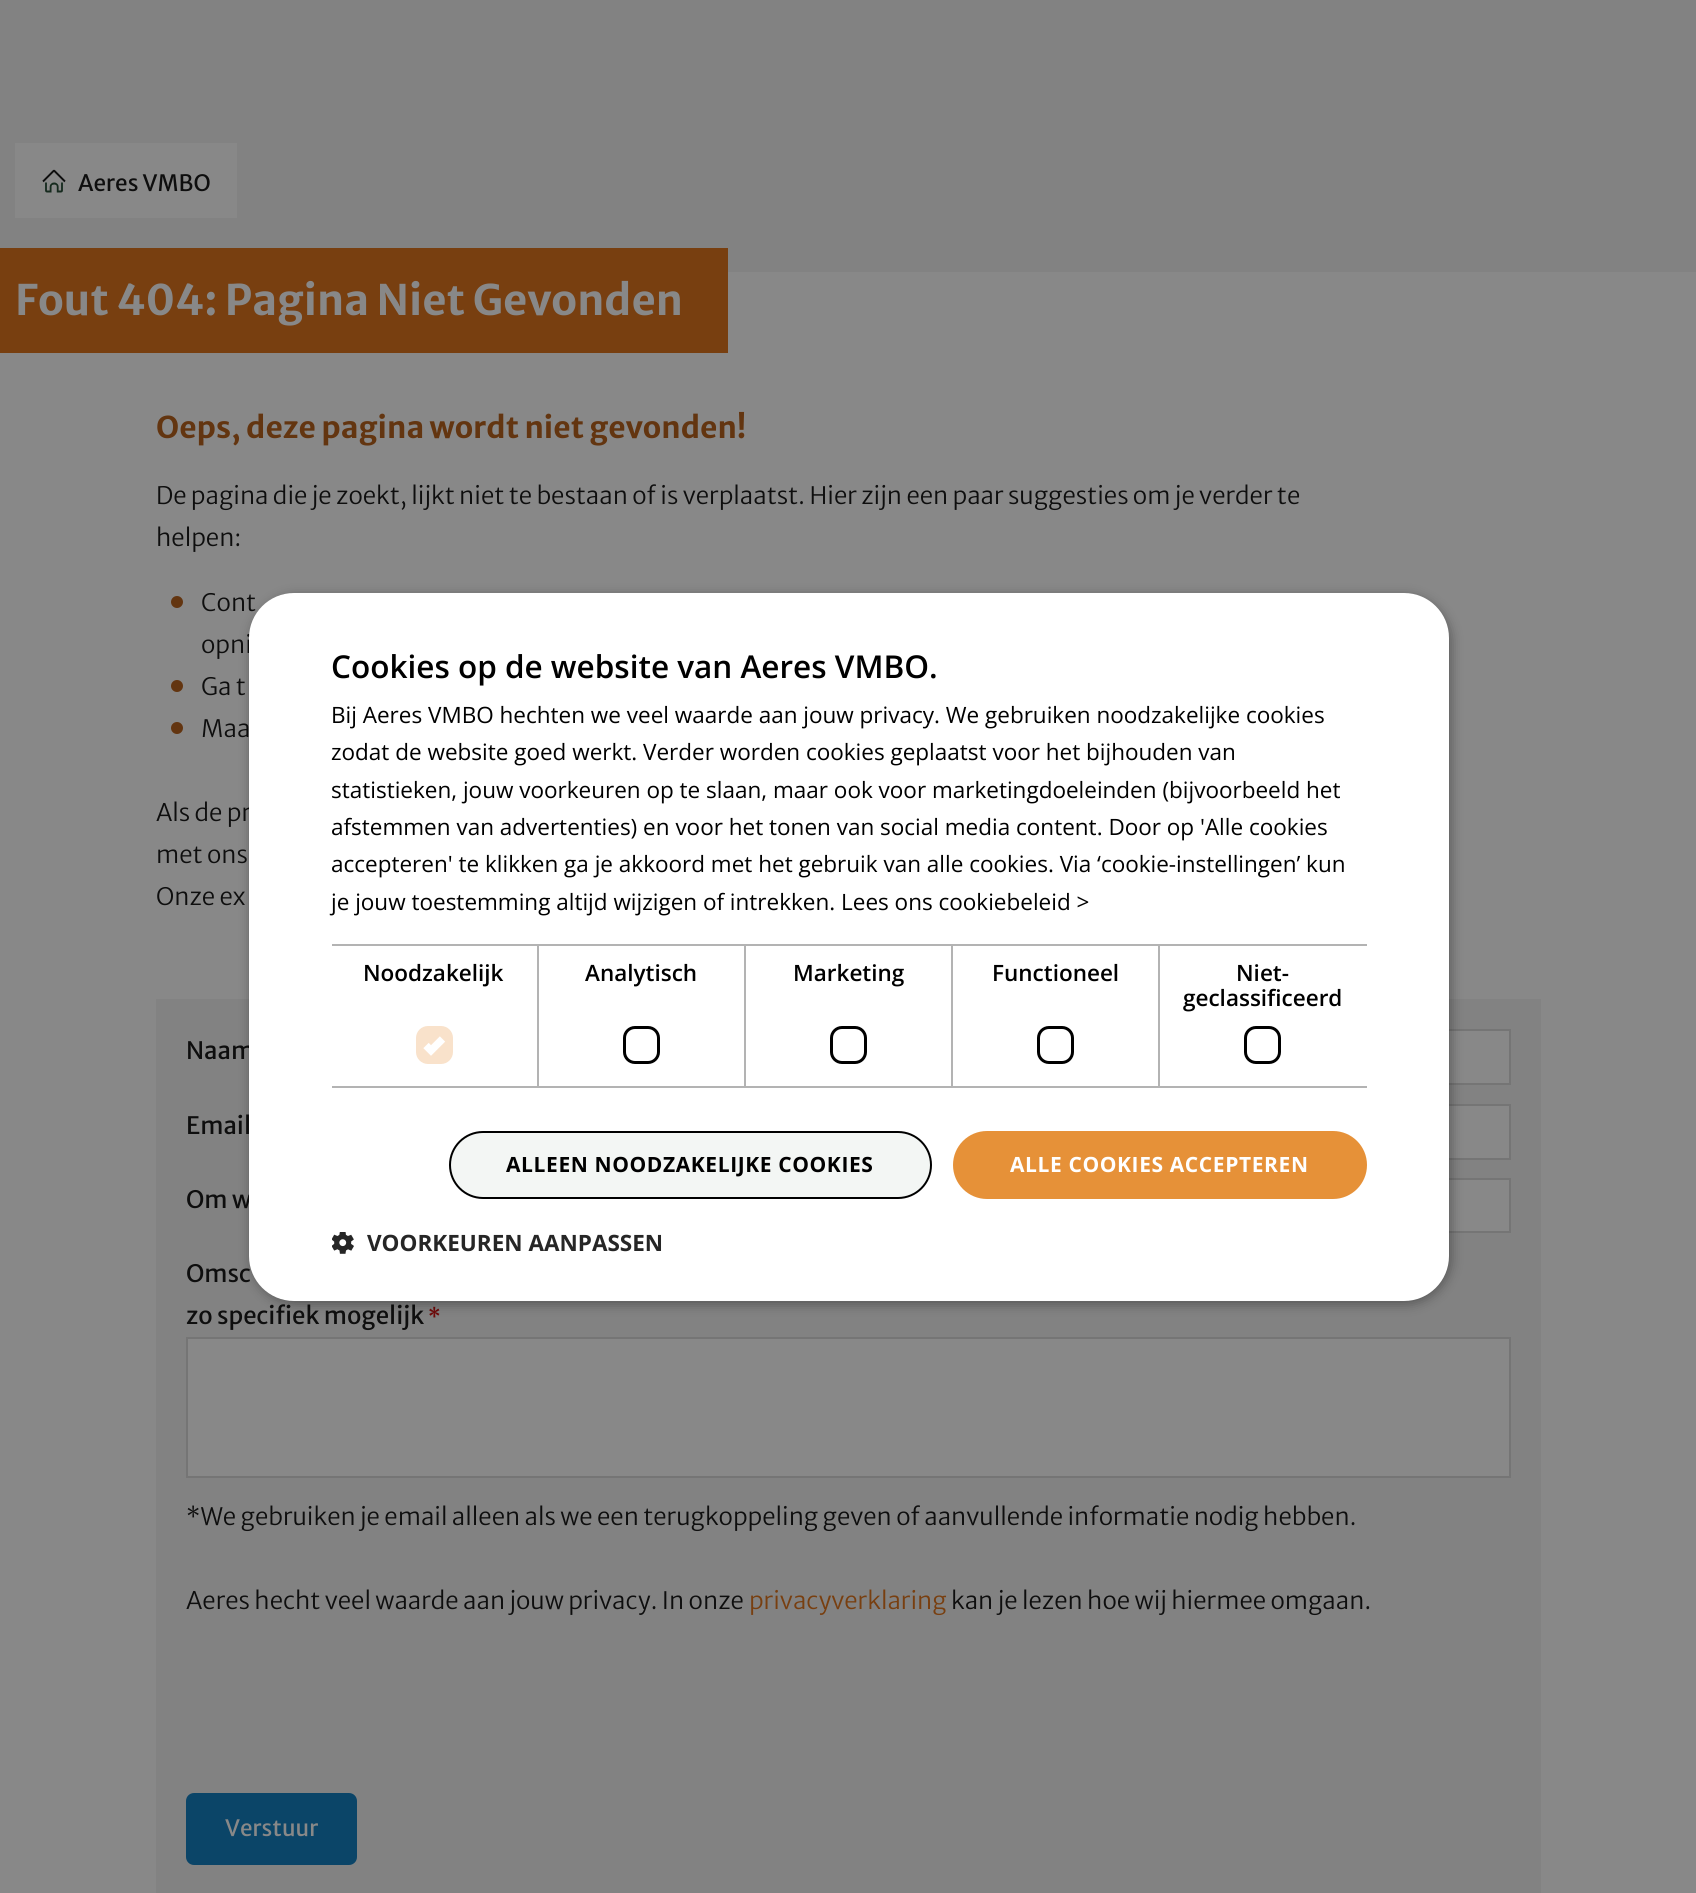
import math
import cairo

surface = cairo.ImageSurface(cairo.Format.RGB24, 1696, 1893)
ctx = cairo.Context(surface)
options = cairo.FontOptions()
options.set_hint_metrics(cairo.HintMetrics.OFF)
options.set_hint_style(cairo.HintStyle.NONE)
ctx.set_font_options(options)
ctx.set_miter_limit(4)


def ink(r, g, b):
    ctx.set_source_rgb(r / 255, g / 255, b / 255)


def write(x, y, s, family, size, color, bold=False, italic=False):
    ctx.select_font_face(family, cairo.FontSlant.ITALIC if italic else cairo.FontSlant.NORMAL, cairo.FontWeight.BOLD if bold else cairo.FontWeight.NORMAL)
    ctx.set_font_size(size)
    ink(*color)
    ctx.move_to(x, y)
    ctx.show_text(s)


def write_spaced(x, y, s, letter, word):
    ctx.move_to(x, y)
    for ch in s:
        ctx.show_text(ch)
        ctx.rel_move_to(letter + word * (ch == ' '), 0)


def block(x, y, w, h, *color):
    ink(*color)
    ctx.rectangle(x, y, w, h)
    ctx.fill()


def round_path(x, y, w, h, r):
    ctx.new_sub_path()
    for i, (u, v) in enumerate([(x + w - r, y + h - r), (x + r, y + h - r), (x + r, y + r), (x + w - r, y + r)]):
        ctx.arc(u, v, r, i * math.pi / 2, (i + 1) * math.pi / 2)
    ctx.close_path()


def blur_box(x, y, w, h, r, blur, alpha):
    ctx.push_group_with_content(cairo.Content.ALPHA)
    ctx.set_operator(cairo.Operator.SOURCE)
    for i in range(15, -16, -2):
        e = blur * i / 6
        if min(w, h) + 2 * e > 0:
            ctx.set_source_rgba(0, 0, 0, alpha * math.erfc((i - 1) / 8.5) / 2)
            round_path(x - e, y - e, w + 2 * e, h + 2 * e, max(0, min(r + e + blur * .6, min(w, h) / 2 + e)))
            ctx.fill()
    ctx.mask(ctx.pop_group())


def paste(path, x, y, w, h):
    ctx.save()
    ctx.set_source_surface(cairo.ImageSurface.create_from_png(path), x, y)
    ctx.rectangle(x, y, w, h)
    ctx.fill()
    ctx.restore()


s1 = dict(family="Merriweather Sans", size=22.5, color=(14, 14, 14))
s2 = dict(family="Merriweather Sans", size=42, color=(136, 136, 136), bold=True)
s3 = dict(family="Merriweather Sans", size=30, color=(99, 53, 16), bold=True)
s4 = dict(family="Merriweather Sans Light", size=24, color=(14, 14, 14))
s5 = dict(family="Merriweather Sans", size=24, color=(14, 14, 14))
s6 = dict(family="Merriweather Sans", size=21, color=(111, 9, 9))
s7 = dict(family="Merriweather Sans Light", size=24, color=(120, 63, 16))
s8 = dict(family="Merriweather Sans", size=22.5, color=(136, 136, 136))
s9 = dict(family="Open Sans SemiBold", size=31.5, color=(0, 0, 0))
s10 = dict(family="Open Sans", size=22.5, color=(0, 0, 0))
s11 = dict(family="Open Sans SemiBold", size=22.5, color=(0, 0, 0))
s12 = dict(family="Open Sans", size=22.5, color=(38, 38, 38), bold=True)

ink(136, 136, 136)
ctx.paint()
block(0, 0, 1696, 272, 130, 130, 130)
block(15, 143, 222, 75, 136, 136, 136)
paste("pic1.png", 42, 169, 24, 24)
write(78, 191, "Aeres VMBO", **s1)
block(0, 248, 728, 105, 120, 63, 16)
write(15, 315, "Fout 404: Pagina Niet Gevonden", **s2)
write(156, 438, "Oeps, deze pagina wordt niet gevonden!", **s3)
write(156, 504, "De pagina die je zoekt, lijkt niet te bestaan of is verplaatst. Hier zijn een paar suggesties om je verder te", **s4)
write(156, 546, "helpen:", **s4)
ink(99, 53, 16)
ctx.new_path()
ctx.arc(177, 602, 6, 0, 2 * math.pi)
ctx.fill()
write(201, 611, "Cont", **s4)
write(201, 653, "opni", **s4)
ink(99, 53, 16)
ctx.new_path()
ctx.arc(177, 686, 6, 0, 2 * math.pi)
ctx.fill()
write(201, 695, "Ga t", **s4)
ink(99, 53, 16)
ctx.new_path()
ctx.arc(177, 728, 6, 0, 2 * math.pi)
ctx.fill()
write(201, 737, "Maa", **s4)
write(156, 821, "Als de pr", **s4)
write(156, 863, "met ons", **s4)
write(156, 905, "Onze ex", **s4)
block(156, 999, 1385, 894, 130, 130, 130)
write(186, 1059, "Naam", **s5)
block(1449, 1031, 60, 52, 136, 136, 136)
ctx.rectangle(585, 1030, 925, 54)
ink(117, 117, 117)
ctx.stroke()
write(186, 1134, "Email", **s5)
block(1449, 1106, 60, 52, 136, 136, 136)
ctx.rectangle(585, 1105, 925, 54)
ink(117, 117, 117)
ctx.stroke()
write(186, 1208, "Om w", **s5)
block(1449, 1180, 60, 51, 136, 136, 136)
ctx.rectangle(585, 1179, 925, 53)
ink(117, 117, 117)
ctx.stroke()
write(186, 1282, "Omsc", **s5)
write(186, 1324, "zo specifiek mogelijk", **s5)
write(428, 1324, "*", **s6)
ink(136, 136, 136)
ctx.rectangle(187, 1338, 1323, 139)
ctx.fill_preserve()
ink(117, 117, 117)
ctx.stroke()
write(186, 1525, "*We gebruiken je email alleen als we een terugkoppeling geven of aanvullende informatie nodig hebben.", **s4)
write(186, 1609, "Aeres hecht veel waarde aan jouw privacy. In onze", **s4)
write(749, 1609, "privacyverklaring", **s7)
write(951, 1609, "kan je lezen hoe wij hiermee omgaan.", **s4)
ink(11, 69, 104)
round_path(187, 1794, 169, 70, 7)
ctx.fill_preserve()
ctx.stroke()
write(225, 1836, "Verstuur", **s8)
ink(0, 0, 0)
blur_box(251, 596, 1200, 708, 45, 6, 0.35)
ink(255, 255, 255)
round_path(249, 593, 1200, 708, 45)
ctx.fill()
write(331, 678, "Cookies op de website van Aeres VMBO.", **s9)
write(331, 723, "Bij Aeres VMBO hechten we veel waarde aan jouw privacy. We gebruiken noodzakelijke cookies", **s10)
write(331, 760, "zodat de website goed werkt. Verder worden cookies geplaatst voor het bijhouden van", **s10)
write(331, 798, "statistieken, jouw voorkeuren op te slaan, maar ook voor marketingdoeleinden (bijvoorbeeld het", **s10)
write(331, 835, "afstemmen van advertenties) en voor het tonen van social media content. Door op 'Alle cookies", **s10)
write(331, 872, "accepteren' te klikken ga je akkoord met het gebruik van alle cookies. Via ‘cookie-instellingen’ kun", **s10)
write(331, 910, "je jouw toestemming altijd wijzigen of intrekken. Lees ons cookiebeleid >", **s10)
block(332, 944, 1035, 2, 179, 179, 179)
block(537, 944, 2, 144, 179, 179, 179)
block(332, 1086, 207, 2, 179, 179, 179)
write(363, 981, "Noodzakelijk", **s11)
ink(249, 226, 203)
round_path(416, 1026, 37, 38, 12)
ctx.fill()
ctx.new_path()
ctx.move_to(426, 1045.5)
ctx.line_to(431, 1050.5)
ctx.line_to(442.5, 1039)
ink(255, 255, 255)
ctx.set_line_width(7.5)
ctx.stroke()
block(744, 944, 2, 144, 179, 179, 179)
block(539, 1086, 207, 2, 179, 179, 179)
write(585, 981, "Analytisch", **s11)
round_path(624.5, 1027.5, 34, 35, 10.5)
ctx.set_line_width(3)
ctx.stroke()
block(951, 944, 2, 144, 179, 179, 179)
block(746, 1086, 207, 2, 179, 179, 179)
write(793, 981, "Marketing", **s11)
round_path(831.5, 1027.5, 34, 35, 10.5)
ctx.stroke()
block(1158, 944, 2, 144, 179, 179, 179)
block(953, 1086, 414, 2, 179, 179, 179)
write(992, 981, "Functioneel", **s11)
round_path(1038.5, 1027.5, 34, 35, 10.5)
ctx.stroke()
write(1236, 981, "Niet-", **s11)
write(1183, 1006, "geclassificeerd", **s11)
round_path(1245.5, 1027.5, 34, 35, 10.5)
ctx.stroke()
ink(243, 246, 244)
round_path(450, 1132, 481, 66, 33)
ctx.fill_preserve()
ink(0, 0, 0)
ctx.set_line_width(2)
ctx.stroke()
ctx.select_font_face("Open Sans", cairo.FontSlant.NORMAL, cairo.FontWeight.BOLD)
ctx.set_font_size(21)
write_spaced(506, 1172, "ALLEEN NOODZAKELIJKE COOKIES", 0.6, 0)
ink(230, 145, 56)
round_path(953, 1131, 414, 68, 34)
ctx.fill()
ink(255, 255, 255)
write_spaced(1010, 1172, "ALLE COOKIES ACCEPTEREN", 0.6, 0)
paste("pic2.png", 332, 1232, 22, 22)
write(367, 1251, "VOORKEUREN AANPASSEN", **s12)
surface.write_to_png("screenshot.png")
